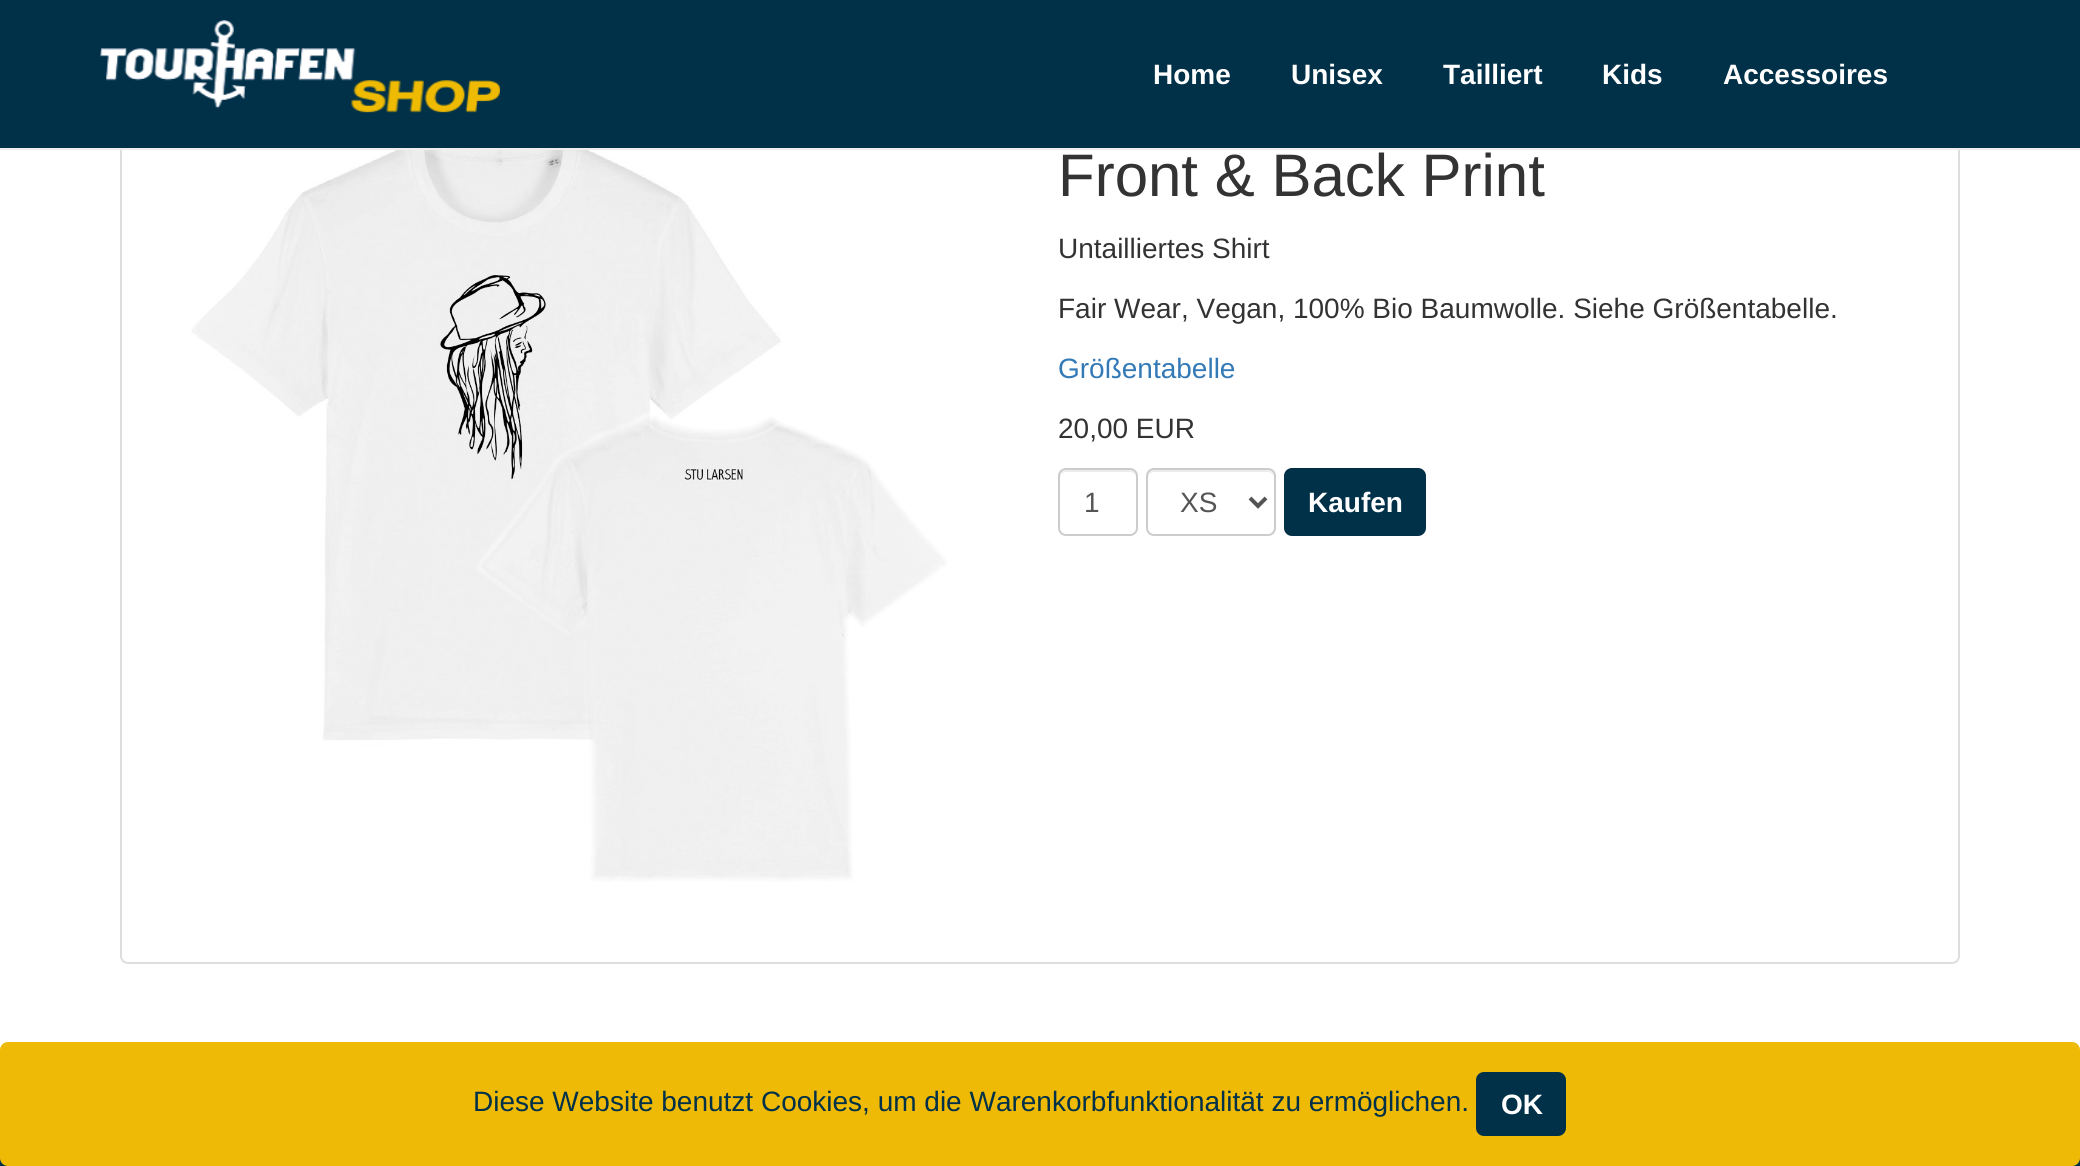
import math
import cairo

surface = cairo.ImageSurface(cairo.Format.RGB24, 2080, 1166)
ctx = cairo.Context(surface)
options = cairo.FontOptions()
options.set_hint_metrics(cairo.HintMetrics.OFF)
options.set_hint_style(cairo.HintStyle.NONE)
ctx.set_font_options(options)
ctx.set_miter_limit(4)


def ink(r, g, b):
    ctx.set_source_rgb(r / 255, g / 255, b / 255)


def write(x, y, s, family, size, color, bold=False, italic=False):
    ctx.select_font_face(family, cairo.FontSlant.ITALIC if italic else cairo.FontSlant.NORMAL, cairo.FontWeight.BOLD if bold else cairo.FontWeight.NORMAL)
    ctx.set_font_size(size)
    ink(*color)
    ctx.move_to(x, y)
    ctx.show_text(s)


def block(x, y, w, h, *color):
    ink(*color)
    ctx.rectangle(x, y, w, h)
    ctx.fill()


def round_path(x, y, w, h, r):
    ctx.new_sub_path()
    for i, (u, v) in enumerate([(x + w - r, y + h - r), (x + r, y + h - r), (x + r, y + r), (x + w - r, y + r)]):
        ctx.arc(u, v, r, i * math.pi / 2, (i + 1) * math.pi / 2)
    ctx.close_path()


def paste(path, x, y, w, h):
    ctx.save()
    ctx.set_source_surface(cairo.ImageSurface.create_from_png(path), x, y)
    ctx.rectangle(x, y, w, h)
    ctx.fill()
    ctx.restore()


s1 = dict(family="Liberation Sans", size=28, color=(255, 255, 255), bold=True)
s2 = dict(family="Liberation Sans", size=60, color=(51, 51, 51))
s3 = dict(family="Liberation Sans", size=28, color=(51, 51, 51))
s4 = dict(family="Liberation Sans", size=28, color=(51, 122, 183))
s5 = dict(family="Liberation Sans", size=28, color=(85, 85, 85))
s6 = dict(family="Liberation Sans", size=28, color=(0, 49, 72))

ink(255, 255, 255)
ctx.paint()
round_path(121, 75, 1838, 888, 7)
ink(221, 221, 221)
ctx.stroke()
block(0, 0, 2080, 148, 0, 49, 72)
block(0, 148, 2080, 2, 238, 238, 238)
paste("pic1.png", 100, 20, 400, 93)
write(1153, 84, "Home", **s1)
write(1291, 84, "Unisex", **s1)
write(1443, 84, "Tailliert", **s1)
write(1602, 84, "Kids", **s1)
write(1723, 84, "Accessoires", **s1)
paste("pic2.png", 191, 150, 756, 732)
write(1058, 196, "Front & Back Print", **s2)
write(1058, 258, "Untailliertes Shirt", **s3)
write(1058, 318, "Fair Wear, Vegan, 100% Bio Baumwolle. Siehe Größentabelle.", **s3)
write(1058, 378, "Größentabelle", **s4)
write(1058, 438, "20,00 EUR", **s3)
ink(236, 236, 236)
ctx.new_path()
ctx.move_to(1066, 472)
ctx.line_to(1130, 472)
ctx.curve_to(1133, 472, 1136, 475, 1136, 478)
ctx.curve_to(1136, 468, 1128, 470, 1119, 470)
ctx.line_to(1077, 470)
ctx.curve_to(1068, 470, 1060, 468, 1060, 478)
ctx.curve_to(1060, 475, 1063, 472, 1066, 472)
ctx.close_path()
ctx.fill()
round_path(1059, 469, 78, 66, 7)
ink(204, 204, 204)
ctx.stroke()
write(1084, 512, "1", **s5)
ink(236, 236, 236)
ctx.new_path()
ctx.move_to(1154, 472)
ctx.line_to(1268, 472)
ctx.curve_to(1271, 472, 1274, 475, 1274, 478)
ctx.line_to(1274, 476)
ctx.curve_to(1274, 473, 1271, 470, 1268, 470)
ctx.line_to(1154, 470)
ctx.curve_to(1151, 470, 1148, 473, 1148, 476)
ctx.line_to(1148, 478)
ctx.curve_to(1148, 475, 1151, 472, 1154, 472)
ctx.close_path()
ctx.fill()
round_path(1147, 469, 128, 66, 7)
ink(204, 204, 204)
ctx.stroke()
ctx.new_path()
ctx.move_to(1250, 498)
ctx.line_to(1258, 506)
ctx.line_to(1266, 498)
ink(85, 85, 85)
ctx.set_line_width(4)
ctx.stroke()
write(1180, 512, "XS", **s5)
ink(0, 49, 72)
round_path(1284, 468, 142, 68, 8)
ctx.fill()
ctx.set_source_rgba(0, 0, 0, 0.07)
ctx.new_path()
ctx.move_to(1292, 470)
ctx.line_to(1418, 470)
ctx.curve_to(1422, 470, 1426, 474, 1426, 478)
ctx.line_to(1426, 476)
ctx.curve_to(1426, 472, 1422, 468, 1418, 468)
ctx.line_to(1292, 468)
ctx.curve_to(1288, 468, 1284, 472, 1284, 476)
ctx.line_to(1284, 478)
ctx.curve_to(1284, 474, 1288, 470, 1292, 470)
ctx.close_path()
ctx.fill()
write(1308, 512, "Kaufen", **s1)
block(0, 1158, 2080, 8, 0, 49, 72)
ink(239, 186, 6)
round_path(0, 1042, 2080, 124, 8)
ctx.fill()
write(473, 1111, "Diese Website benutzt Cookies, um die Warenkorbfunktionalität zu ermöglichen.", **s6)
round_path(1476, 1072, 90, 64, 8)
ctx.fill()
write(1501, 1114, "OK", **s1)
surface.write_to_png("screenshot.png")
